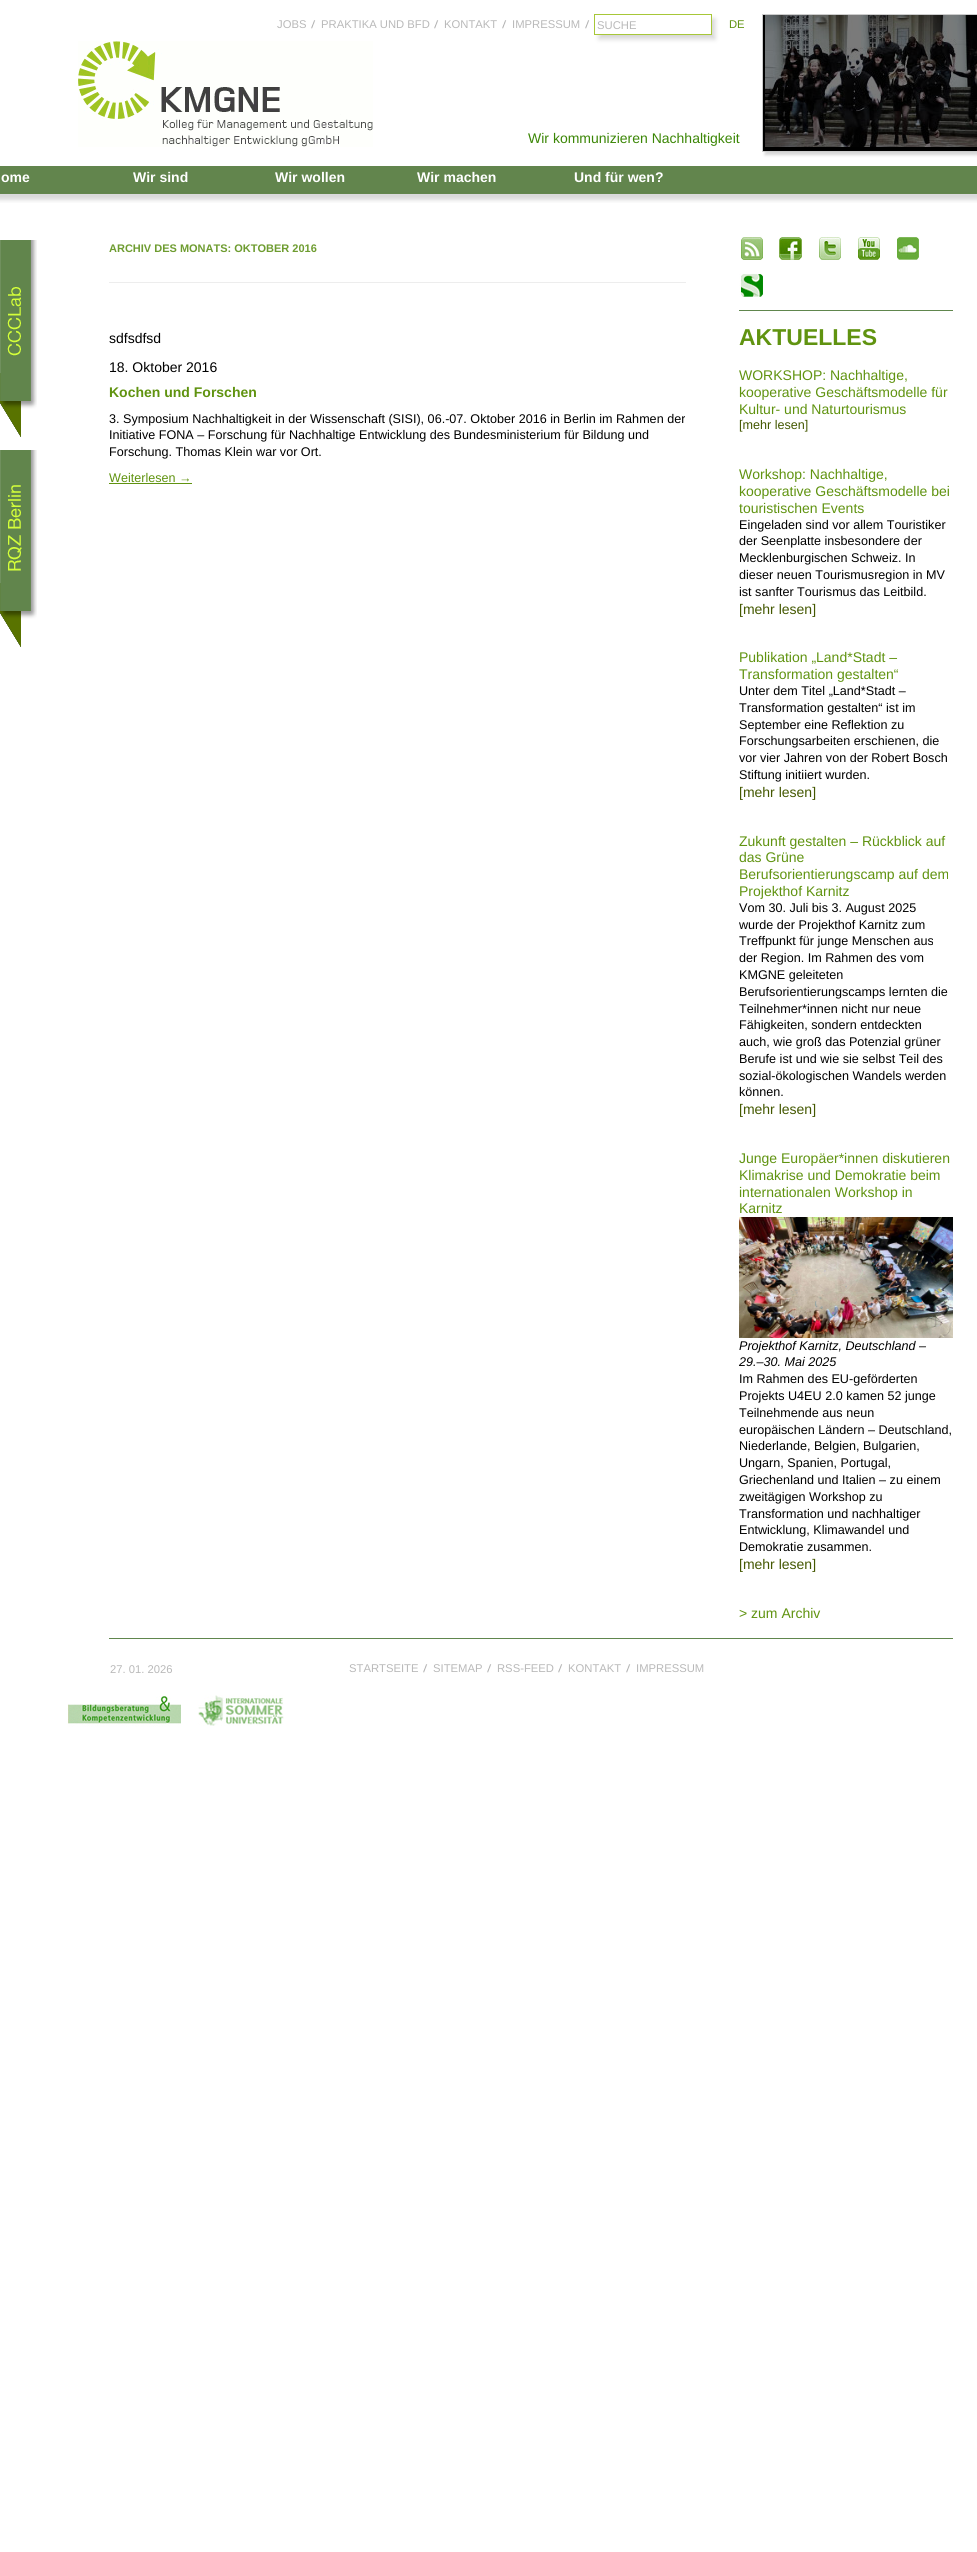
import math
import cairo

surface = cairo.ImageSurface(cairo.Format.RGB24, 977, 2552)
ctx = cairo.Context(surface)
options = cairo.FontOptions()
options.set_hint_metrics(cairo.HintMetrics.OFF)
options.set_hint_style(cairo.HintStyle.NONE)
ctx.set_font_options(options)
ctx.set_miter_limit(4)


def ink(r, g, b):
    ctx.set_source_rgb(r / 255, g / 255, b / 255)


def write(x, y, s, family, size, color, bold=False, italic=False):
    ctx.select_font_face(family, cairo.FontSlant.ITALIC if italic else cairo.FontSlant.NORMAL, cairo.FontWeight.BOLD if bold else cairo.FontWeight.NORMAL)
    ctx.set_font_size(size)
    ink(*color)
    ctx.move_to(x, y)
    ctx.show_text(s)


def block(x, y, w, h, *color):
    ink(*color)
    ctx.rectangle(x, y, w, h)
    ctx.fill()


def round_path(x, y, w, h, r):
    ctx.new_sub_path()
    for i, (u, v) in enumerate([(x + w - r, y + h - r), (x + r, y + h - r), (x + r, y + r), (x + w - r, y + r)]):
        ctx.arc(u, v, r, i * math.pi / 2, (i + 1) * math.pi / 2)
    ctx.close_path()


def blur_box(x, y, w, h, r, blur, alpha):
    ctx.push_group_with_content(cairo.Content.ALPHA)
    ctx.set_operator(cairo.Operator.SOURCE)
    for i in range(15, -16, -2):
        e = blur * i / 6
        if min(w, h) + 2 * e > 0:
            ctx.set_source_rgba(0, 0, 0, alpha * math.erfc((i - 1) / 8.5) / 2)
            round_path(x - e, y - e, w + 2 * e, h + 2 * e, max(0, min(r + e + blur * .6, min(w, h) / 2 + e)))
            ctx.fill()
    ctx.mask(ctx.pop_group())


def paste(path, x, y, w, h):
    ctx.save()
    ctx.set_source_surface(cairo.ImageSurface.create_from_png(path), x, y)
    ctx.rectangle(x, y, w, h)
    ctx.fill()
    ctx.restore()


s1 = dict(family="Liberation Sans", size=11.25, color=(185, 185, 185))
s2 = dict(family="Liberation Sans", size=11.25, color=(96, 147, 16))
s3 = dict(family="Liberation Sans", size=14, color=(59, 134, 5))
s4 = dict(family="Liberation Sans", size=14, color=(255, 255, 255), bold=True)
s5 = dict(family="Liberation Sans", size=11, color=(110, 156, 48), bold=True)
s6 = dict(family="Liberation Sans", size=14, color=(0, 0, 0))
s7 = dict(family="Liberation Sans", size=14, color=(96, 147, 16), bold=True)
s8 = dict(family="Liberation Sans", size=12.6, color=(0, 0, 0))
s9 = dict(family="Liberation Sans", size=12.6, color=(96, 147, 16))
s10 = dict(family="Liberation Sans", size=23, color=(96, 147, 16), bold=True)
s11 = dict(family="Liberation Sans", size=14, color=(96, 147, 16))
s12 = dict(family="Liberation Sans", size=12.6, color=(68, 88, 1))
s13 = dict(family="Liberation Sans", size=14, color=(68, 88, 1))
s14 = dict(family="Liberation Sans", size=12.6, color=(0, 0, 0), italic=True)

ink(255, 255, 255)
ctx.paint()
paste("pic1.png", 311, 20, 5, 9)
write(277, 28, "JOBS", **s1)
paste("pic1.png", 434, 20, 5, 9)
write(321, 28, "PRAKTIKA UND BFD", **s1)
paste("pic1.png", 502, 20, 5, 9)
write(444, 28, "KONTAKT", **s1)
paste("pic1.png", 585, 20, 5, 9)
write(512, 28, "IMPRESSUM", **s1)
ink(213, 213, 213)
blur_box(599, 19, 116, 20, 0, 2.5, 1)
ink(255, 255, 255)
ctx.rectangle(594.5, 14.5, 117, 20)
ctx.fill_preserve()
ink(167, 199, 56)
ctx.set_line_width(1)
ctx.stroke()
write(597, 29, "SUCHE", **s1)
write(729, 28, "DE", **s2)
ink(213, 213, 213)
blur_box(765, 17, 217, 138, 0, 1.5, 1)
ink(0, 0, 0)
ctx.rectangle(762.5, 14.5, 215, 137)
ctx.fill_preserve()
ink(204, 204, 204)
ctx.stroke()
paste("pic2.png", 765, 15, 212, 132)
paste("pic3.png", 78, 41, 295, 106)
write(528, 143, "Wir kommunizieren Nachhaltigkeit", **s3)
paste("pic4.png", 0, 166, 977, 37)
write(1, 182, "ome", **s4)
write(133, 182, "Wir sind", **s4)
write(275, 182, "Wir wollen", **s4)
write(417, 182, "Wir machen", **s4)
write(574, 182, "Und für wen?", **s4)
block(109, 282, 577, 1, 237, 237, 237)
write(109, 252, "ARCHIV DES MONATS: OKTOBER 2016", **s5)
write(109, 343, "sdfsdfsd", **s6)
write(109, 372, "18. Oktober 2016", **s6)
write(109, 397, "Kochen und Forschen", **s7)
write(109, 423, "3. Symposium Nachhaltigkeit in der Wissenschaft (SISI), 06.-07. Oktober 2016 in Berlin im Rahmen der", **s8)
write(109, 439, "Initiative FONA – Forschung für Nachhaltige Entwicklung des Bundesministerium für Bildung und", **s8)
write(109, 456, "Forschung. Thomas Klein war vor Ort.", **s8)
write(109, 482, "Weiterlesen →", **s9)
block(109, 483, 83, 1, 96, 147, 16)
paste("pic5.png", 741, 237, 22, 23)
paste("pic6.png", 779, 237, 23, 23)
paste("pic7.png", 819, 237, 22, 23)
paste("pic8.png", 858, 237, 22, 23)
paste("pic9.png", 897, 237, 22, 23)
paste("pic10.png", 739, 273, 24, 24)
block(739, 310, 214, 1, 96, 134, 77)
write(739, 345, "AKTUELLES", **s10)
write(739, 380, "WORKSHOP: Nachhaltige,", **s11)
write(739, 397, "kooperative Geschäftsmodelle für", **s11)
write(739, 414, "Kultur- und Naturtourismus", **s11)
write(739, 429, "[mehr lesen]", **s12)
write(739, 479, "Workshop: Nachhaltige,", **s11)
write(739, 496, "kooperative Geschäftsmodelle bei", **s11)
write(739, 513, "touristischen Events", **s11)
write(739, 529, "Eingeladen sind vor allem Touristiker", **s8)
write(739, 545, "der Seenplatte insbesondere der", **s8)
write(739, 562, "Mecklenburgischen Schweiz. In", **s8)
write(739, 579, "dieser neuen Tourismusregion in MV", **s8)
write(739, 596, "ist sanfter Tourismus das Leitbild.", **s8)
write(739, 614, "[mehr lesen]", **s13)
write(739, 662, "Publikation „Land*Stadt –", **s11)
write(739, 679, "Transformation gestalten“", **s11)
write(739, 695, "Unter dem Titel „Land*Stadt –", **s8)
write(739, 712, "Transformation gestalten“ ist im", **s8)
write(739, 729, "September eine Reflektion zu", **s8)
write(739, 745, "Forschungsarbeiten erschienen, die", **s8)
write(739, 762, "vor vier Jahren von der Robert Bosch", **s8)
write(739, 779, "Stiftung initiiert wurden.", **s8)
write(739, 797, "[mehr lesen]", **s13)
write(739, 846, "Zukunft gestalten – Rückblick auf", **s11)
write(739, 862, "das Grüne", **s11)
write(739, 879, "Berufsorientierungscamp auf dem", **s11)
write(739, 896, "Projekthof Karnitz", **s11)
write(739, 912, "Vom 30. Juli bis 3. August 2025", **s8)
write(739, 929, "wurde der Projekthof Karnitz zum", **s8)
write(739, 945, "Treffpunkt für junge Menschen aus", **s8)
write(739, 962, "der Region. Im Rahmen des vom", **s8)
write(739, 979, "KMGNE geleiteten", **s8)
write(739, 996, "Berufsorientierungscamps lernten die", **s8)
write(739, 1013, "Teilnehmer*innen nicht nur neue", **s8)
write(739, 1029, "Fähigkeiten, sondern entdeckten", **s8)
write(739, 1046, "auch, wie groß das Potenzial grüner", **s8)
write(739, 1063, "Berufe ist und wie sie selbst Teil des", **s8)
write(739, 1080, "sozial-ökologischen Wandels werden", **s8)
write(739, 1096, "können.", **s8)
write(739, 1114, "[mehr lesen]", **s13)
write(739, 1163, "Junge Europäer*innen diskutieren", **s11)
write(739, 1180, "Klimakrise und Demokratie beim", **s11)
write(739, 1197, "internationalen Workshop in", **s11)
write(739, 1213, "Karnitz", **s11)
paste("pic11.png", 739, 1217, 214, 121)
write(739, 1350, "Projekthof Karnitz, Deutschland –", **s14)
write(739, 1366, "29.–30. Mai 2025", **s14)
write(739, 1383, "Im Rahmen des EU-geförderten", **s8)
write(739, 1400, "Projekts U4EU 2.0 kamen 52 junge", **s8)
write(739, 1417, "Teilnehmende aus neun", **s8)
write(739, 1434, "europäischen Ländern – Deutschland,", **s8)
write(739, 1450, "Niederlande, Belgien, Bulgarien,", **s8)
write(739, 1467, "Ungarn, Spanien, Portugal,", **s8)
write(739, 1484, "Griechenland und Italien – zu einem", **s8)
write(739, 1501, "zweitägigen Workshop zu", **s8)
write(739, 1518, "Transformation und nachhaltiger", **s8)
write(739, 1534, "Entwicklung, Klimawandel und", **s8)
write(739, 1551, "Demokratie zusammen.", **s8)
write(739, 1569, "[mehr lesen]", **s13)
write(739, 1618, "> zum Archiv", **s11)
block(109, 1638, 844, 1, 96, 134, 77)
write(110, 1673, "27. 01. 2026", **s1)
write(349, 1672, "STARTSEITE", **s1)
paste("pic1.png", 423, 1664, 5, 9)
write(433, 1672, "SITEMAP", **s1)
paste("pic1.png", 487, 1664, 5, 9)
write(497, 1672, "RSS-FEED", **s1)
paste("pic1.png", 558, 1664, 5, 9)
write(568, 1672, "KONTAKT", **s1)
paste("pic1.png", 626, 1664, 5, 9)
write(636, 1672, "IMPRESSUM", **s1)
paste("pic12.png", 67, 1696, 114, 31)
paste("pic13.png", 198, 1695, 86, 31)
paste("pic14.png", 0, 240, 37, 197)
paste("pic15.png", 0, 450, 37, 197)
surface.write_to_png("screenshot.png")
